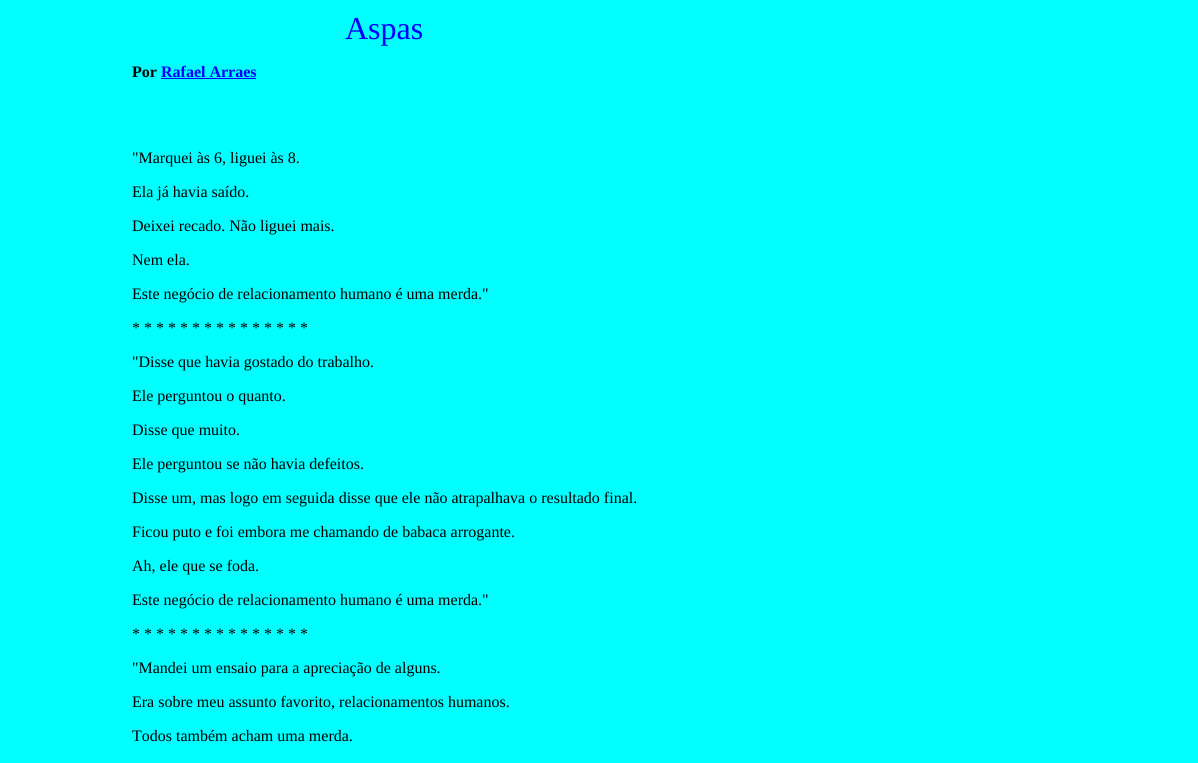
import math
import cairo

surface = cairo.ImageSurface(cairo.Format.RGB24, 1198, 763)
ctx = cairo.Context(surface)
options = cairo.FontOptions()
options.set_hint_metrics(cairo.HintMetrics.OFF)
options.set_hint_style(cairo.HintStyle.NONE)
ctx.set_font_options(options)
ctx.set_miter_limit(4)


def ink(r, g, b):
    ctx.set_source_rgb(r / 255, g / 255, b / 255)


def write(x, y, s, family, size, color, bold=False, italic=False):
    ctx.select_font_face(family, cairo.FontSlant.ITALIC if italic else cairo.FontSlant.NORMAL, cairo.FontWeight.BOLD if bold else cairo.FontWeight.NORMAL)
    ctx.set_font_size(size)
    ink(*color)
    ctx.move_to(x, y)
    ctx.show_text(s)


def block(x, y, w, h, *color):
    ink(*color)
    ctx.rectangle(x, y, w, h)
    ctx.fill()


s1 = dict(family="Liberation Serif", size=32, color=(0, 0, 255))
s2 = dict(family="Liberation Serif", size=16, color=(0, 0, 0), bold=True)
s3 = dict(family="Liberation Serif", size=16, color=(0, 0, 255), bold=True)
s4 = dict(family="Liberation Serif", size=16, color=(0, 0, 0))

ink(0, 255, 255)
ctx.paint()
write(345, 39, "Aspas", **s1)
write(132, 77, "Por", **s2)
write(161, 77, "Rafael Arraes", **s3)
block(161, 78, 95, 1, 0, 0, 255)
write(132, 163, "\"Marquei às 6, liguei às 8.", **s4)
write(132, 197, "Ela já havia saído.", **s4)
write(132, 231, "Deixei recado. Não liguei mais.", **s4)
write(132, 265, "Nem ela.", **s4)
write(132, 299, "Este negócio de relacionamento humano é uma merda.\"", **s4)
write(132, 333, "* * * * * * * * * * * * * * *", **s4)
write(132, 367, "\"Disse que havia gostado do trabalho.", **s4)
write(132, 401, "Ele perguntou o quanto.", **s4)
write(132, 435, "Disse que muito.", **s4)
write(132, 469, "Ele perguntou se não havia defeitos.", **s4)
write(132, 503, "Disse um, mas logo em seguida disse que ele não atrapalhava o resultado final.", **s4)
write(132, 537, "Ficou puto e foi embora me chamando de babaca arrogante.", **s4)
write(132, 571, "Ah, ele que se foda.", **s4)
write(132, 605, "Este negócio de relacionamento humano é uma merda.\"", **s4)
write(132, 639, "* * * * * * * * * * * * * * *", **s4)
write(132, 673, "\"Mandei um ensaio para a apreciação de alguns.", **s4)
write(132, 707, "Era sobre meu assunto favorito, relacionamentos humanos.", **s4)
write(132, 741, "Todos também acham uma merda.", **s4)
surface.write_to_png("screenshot.png")
